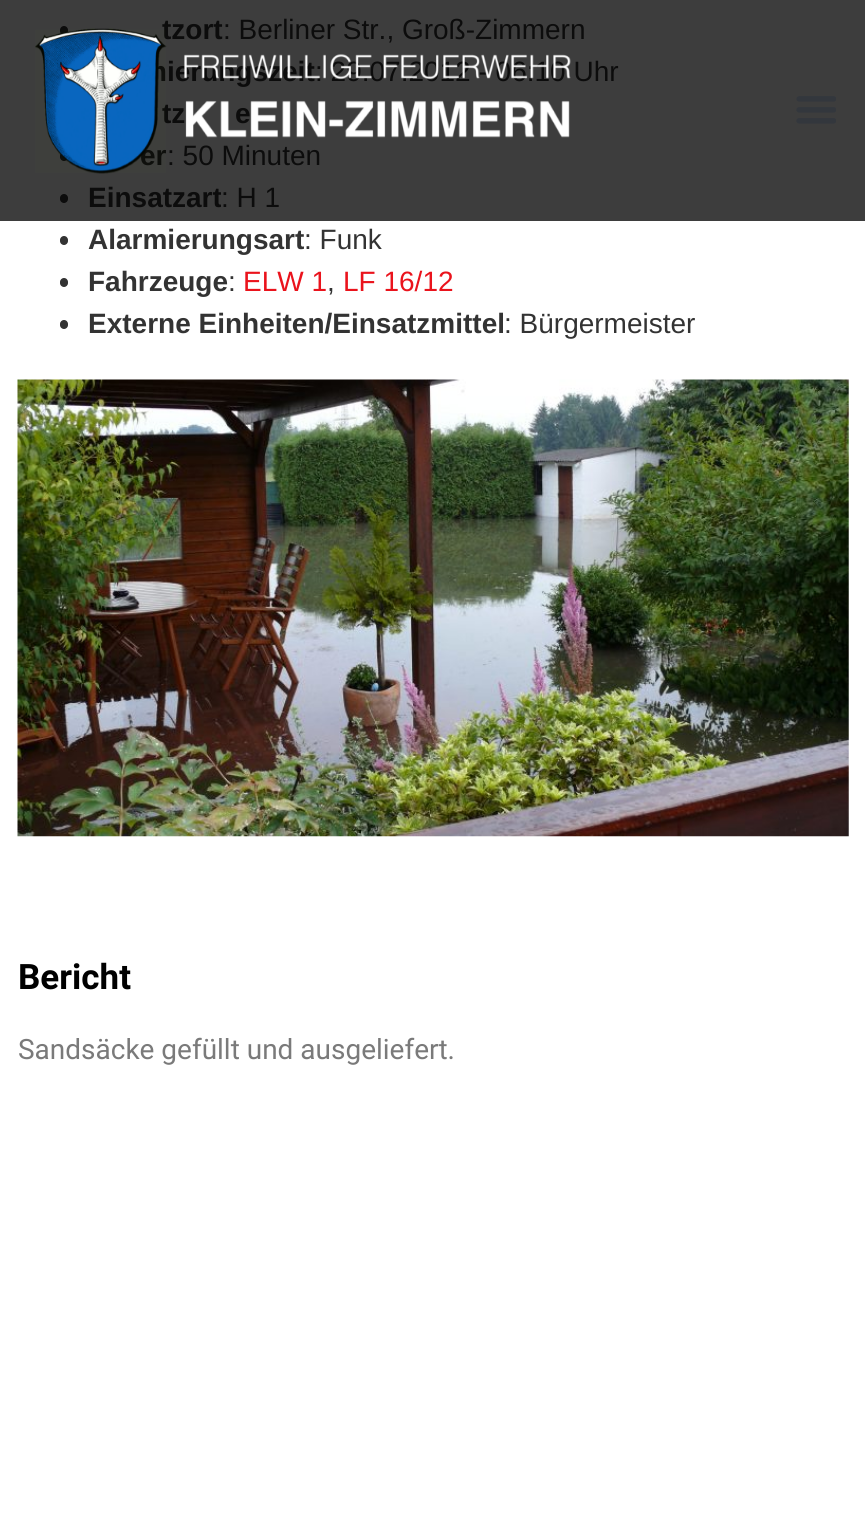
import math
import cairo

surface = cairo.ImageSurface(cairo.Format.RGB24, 865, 1519)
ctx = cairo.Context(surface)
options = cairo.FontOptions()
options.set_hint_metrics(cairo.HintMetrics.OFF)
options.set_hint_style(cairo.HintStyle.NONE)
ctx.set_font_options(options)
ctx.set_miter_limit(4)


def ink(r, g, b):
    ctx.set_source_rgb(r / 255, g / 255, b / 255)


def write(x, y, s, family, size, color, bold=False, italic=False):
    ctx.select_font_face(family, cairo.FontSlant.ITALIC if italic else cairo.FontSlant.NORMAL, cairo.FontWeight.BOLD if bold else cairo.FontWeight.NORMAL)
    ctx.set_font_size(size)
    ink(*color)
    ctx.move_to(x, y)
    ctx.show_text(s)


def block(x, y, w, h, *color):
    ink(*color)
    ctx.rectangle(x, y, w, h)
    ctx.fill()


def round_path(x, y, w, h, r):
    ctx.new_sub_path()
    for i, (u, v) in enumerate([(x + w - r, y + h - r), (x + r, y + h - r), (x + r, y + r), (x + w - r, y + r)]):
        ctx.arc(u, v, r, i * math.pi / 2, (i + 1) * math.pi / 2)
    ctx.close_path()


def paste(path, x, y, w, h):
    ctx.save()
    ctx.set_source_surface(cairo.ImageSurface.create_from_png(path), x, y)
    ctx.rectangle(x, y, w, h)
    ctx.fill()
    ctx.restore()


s1 = dict(family="Liberation Sans", size=28, color=(12, 12, 12), bold=True)
s2 = dict(family="Liberation Sans", size=28, color=(12, 12, 12))
s3 = dict(family="Liberation Sans", size=28, color=(51, 51, 51), bold=True)
s4 = dict(family="Liberation Sans", size=28, color=(51, 51, 51))
s5 = dict(family="Liberation Sans", size=28, color=(234, 19, 28))
s6 = dict(family="Roboto", size=35, color=(0, 0, 0), bold=True)
s7 = dict(family="Roboto", size=28, color=(122, 122, 122))

ink(255, 255, 255)
ctx.paint()
block(0, 0, 865, 221, 61, 61, 61)
ink(12, 12, 12)
round_path(60, 26, 8, 9, 4)
ctx.fill()
write(162, 39, "tzort", **s1)
write(223, 39, ": Berliner Str., Groß-Zimmern", **s2)
write(142, 81, "mierungszeit", **s1)
write(315, 81, ": 29.07.2012 - 06:10 Uhr", **s2)
write(162, 123, "tz", **s1)
write(235, 123, "e", **s1)
round_path(60, 152, 8, 9, 4)
ctx.fill()
write(140, 165, "er", **s1)
write(167, 165, ": 50 Minuten", **s2)
round_path(60, 194, 8, 9, 4)
ctx.fill()
write(88, 207, "Einsatzart", **s1)
write(221, 207, ": H 1", **s2)
ink(51, 51, 51)
round_path(60, 236, 8, 9, 4)
ctx.fill()
write(88, 249, "Alarmierungsart", **s3)
write(304, 249, ": Funk", **s4)
round_path(60, 278, 8, 9, 4)
ctx.fill()
write(88, 291, "Fahrzeuge", **s3)
write(228, 291, ":", **s4)
write(243, 291, "ELW 1", **s5)
write(343, 291, "LF 16/12", **s5)
write(327, 291, ",", **s4)
round_path(60, 320, 8, 9, 4)
ctx.fill()
write(88, 333, "Externe Einheiten/Einsatzmittel", **s3)
write(504, 333, ": Bürgermeister", **s4)
paste("pic1.png", 17, 379, 832, 458)
write(18, 989, "Bericht", **s6)
write(18, 1059, "Sandsäcke gefüllt und ausgeliefert.", **s7)
paste("pic2.png", 35, 28, 536, 146)
paste("pic3.png", 796, 96, 40, 28)
surface.write_to_png("screenshot.png")
